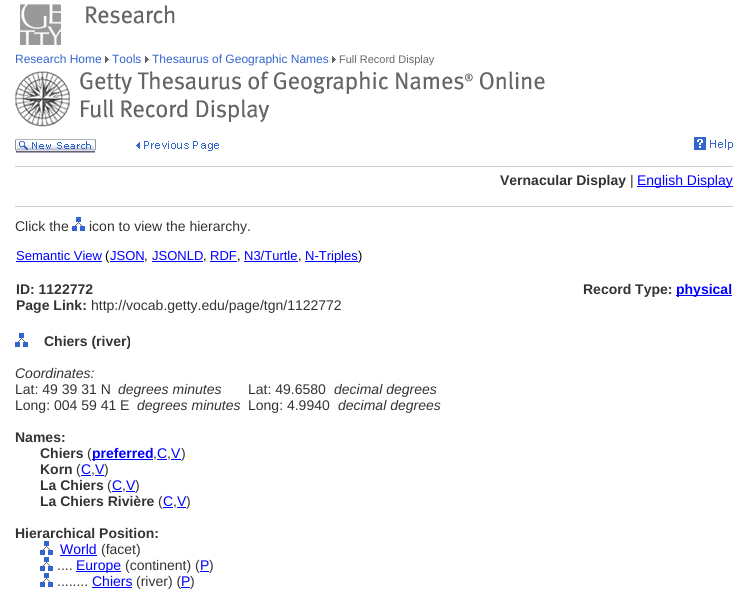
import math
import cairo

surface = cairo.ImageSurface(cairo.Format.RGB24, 744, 602)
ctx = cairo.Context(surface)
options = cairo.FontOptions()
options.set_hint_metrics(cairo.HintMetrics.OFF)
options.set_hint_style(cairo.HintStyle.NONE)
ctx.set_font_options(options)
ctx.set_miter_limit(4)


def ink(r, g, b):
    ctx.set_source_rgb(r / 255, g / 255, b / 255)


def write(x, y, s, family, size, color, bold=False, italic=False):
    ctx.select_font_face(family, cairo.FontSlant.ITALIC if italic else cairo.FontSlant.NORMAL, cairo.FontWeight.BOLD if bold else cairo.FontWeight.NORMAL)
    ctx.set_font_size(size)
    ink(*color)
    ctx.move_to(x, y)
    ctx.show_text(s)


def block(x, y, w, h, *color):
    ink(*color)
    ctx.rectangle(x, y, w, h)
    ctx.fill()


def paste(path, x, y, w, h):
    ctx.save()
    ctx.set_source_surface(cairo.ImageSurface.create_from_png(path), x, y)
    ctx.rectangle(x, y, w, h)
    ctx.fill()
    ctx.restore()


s1 = dict(family="Liberation Sans", size=12, color=(51, 102, 204))
s2 = dict(family="Liberation Sans", size=11, color=(102, 102, 102))
s3 = dict(family="Liberation Sans", size=14, color=(51, 51, 51), bold=True)
s4 = dict(family="Liberation Sans", size=14, color=(51, 51, 51))
s5 = dict(family="Liberation Sans", size=14, color=(0, 0, 255))
s6 = dict(family="Liberation Sans", size=13, color=(0, 0, 255))
s7 = dict(family="Liberation Sans", size=13, color=(0, 0, 0))
s8 = dict(family="Liberation Sans", size=14, color=(0, 0, 255), bold=True)
s9 = dict(family="Liberation Sans", size=14, color=(51, 51, 51), italic=True)

ink(255, 255, 255)
ctx.paint()
paste("pic1.png", 20, 4, 41, 41)
paste("pic2.png", 86, 5, 89, 19)
write(15, 63, "Research Home", **s1)
paste("pic3.png", 105, 56, 4, 7)
write(112, 63, "Tools", **s1)
paste("pic3.png", 145, 56, 4, 7)
write(152, 63, "Thesaurus of Geographic Names", **s1)
paste("pic3.png", 332, 56, 4, 7)
write(339, 63, "Full Record Display", **s2)
paste("pic4.png", 15, 71, 530, 56)
paste("pic5.png", 15, 139, 81, 14)
paste("pic6.png", 134, 139, 90, 13)
paste("pic7.png", 694, 137, 39, 13)
block(15, 166, 718, 1, 204, 204, 204)
write(500, 185, "Vernacular Display", **s3)
write(630, 185, "|", **s4)
block(637, 186, 96, 1, 0, 0, 255)
write(637, 185, "English Display", **s5)
block(15, 206, 718, 1, 204, 204, 204)
write(15, 231, "Click the", **s4)
paste("pic8.png", 72, 217, 13, 14)
write(89, 231, "icon to view the hierarchy.", **s4)
write(16, 260, "Semantic View", **s6)
block(16, 261, 86, 1, 0, 0, 255)
write(105, 260, "(", **s7)
write(110, 260, "JSON", **s6)
block(110, 261, 34, 1, 0, 0, 255)
write(144, 260, ",", **s7)
write(152, 260, "JSONLD", **s6)
block(152, 261, 51, 1, 0, 0, 255)
write(203, 260, ",", **s7)
write(210, 260, "RDF", **s6)
block(210, 261, 27, 1, 0, 0, 255)
write(237, 260, ",", **s7)
write(244, 260, "N3/Turtle", **s6)
block(244, 261, 54, 1, 0, 0, 255)
write(298, 260, ",", **s7)
block(305, 261, 53, 1, 0, 0, 255)
write(305, 260, "N-Triples", **s6)
write(358, 260, ")", **s7)
write(16, 294, "ID: 1122772", **s3)
write(16, 310, "Page Link:", **s3)
write(91, 310, "http://vocab.getty.edu/page/tgn/1122772", **s4)
write(583, 294, "Record Type:", **s3)
block(676, 295, 56, 1, 0, 0, 255)
write(676, 294, "physical", **s8)
paste("pic8.png", 15, 333, 13, 14)
write(44, 346, "Chiers (river)", **s3)
write(15, 378, "Coordinates:", **s9)
write(15, 394, "Lat: 49 39 31 N", **s4)
write(118, 394, "degrees minutes", **s9)
write(248, 394, "Lat: 49.6580", **s4)
write(334, 394, "decimal degrees", **s9)
write(15, 410, "Long: 004 59 41 E", **s4)
write(137, 410, "degrees minutes", **s9)
write(248, 410, "Long: 4.9940", **s4)
write(338, 410, "decimal degrees", **s9)
write(15, 442, "Names:", **s3)
write(40, 458, "Chiers", **s3)
write(87, 458, "(", **s4)
block(92, 459, 61, 1, 0, 0, 255)
write(92, 458, "preferred", **s8)
write(153, 458, ",", **s4)
block(157, 459, 10, 1, 0, 0, 255)
write(157, 458, "C V", **s5)
block(171, 459, 10, 1, 0, 0, 255)
write(181, 458, ")", **s4)
write(167, 458, ",", **s4)
write(40, 474, "Korn", **s3)
write(76, 474, "(", **s4)
write(81, 474, "C V", **s5)
write(104, 474, ")", **s4)
write(91, 474, ",", **s4)
block(81, 475, 10, 1, 0, 0, 255)
block(95, 475, 9, 1, 0, 0, 255)
write(40, 490, "La Chiers", **s3)
write(107, 490, "(", **s4)
write(112, 490, "C V", **s5)
write(135, 490, ")", **s4)
write(122, 490, ",", **s4)
block(112, 491, 10, 1, 0, 0, 255)
block(126, 491, 9, 1, 0, 0, 255)
write(40, 506, "La Chiers Rivière", **s3)
write(158, 506, "(", **s4)
write(163, 506, "C V", **s5)
write(186, 506, ")", **s4)
write(173, 506, ",", **s4)
block(163, 507, 10, 1, 0, 0, 255)
block(177, 507, 9, 1, 0, 0, 255)
write(15, 538, "Hierarchical Position:", **s3)
paste("pic8.png", 40, 541, 13, 14)
write(60, 554, "World", **s5)
block(60, 555, 37, 1, 0, 0, 255)
write(101, 554, "(facet)", **s4)
paste("pic8.png", 40, 557, 13, 14)
write(57, 570, "....", **s4)
block(76, 571, 45, 1, 0, 0, 255)
write(76, 570, "Europe", **s5)
write(125, 570, "(continent) (", **s4)
block(200, 571, 9, 1, 0, 0, 255)
write(200, 570, "P", **s5)
write(209, 570, ")", **s4)
paste("pic8.png", 40, 573, 13, 14)
write(57, 586, "........", **s4)
write(92, 586, "Chiers", **s5)
block(92, 587, 40, 1, 0, 0, 255)
write(136, 586, "(river) (", **s4)
block(181, 587, 9, 1, 0, 0, 255)
write(181, 586, "P", **s5)
write(190, 586, ")", **s4)
surface.write_to_png("screenshot.png")
